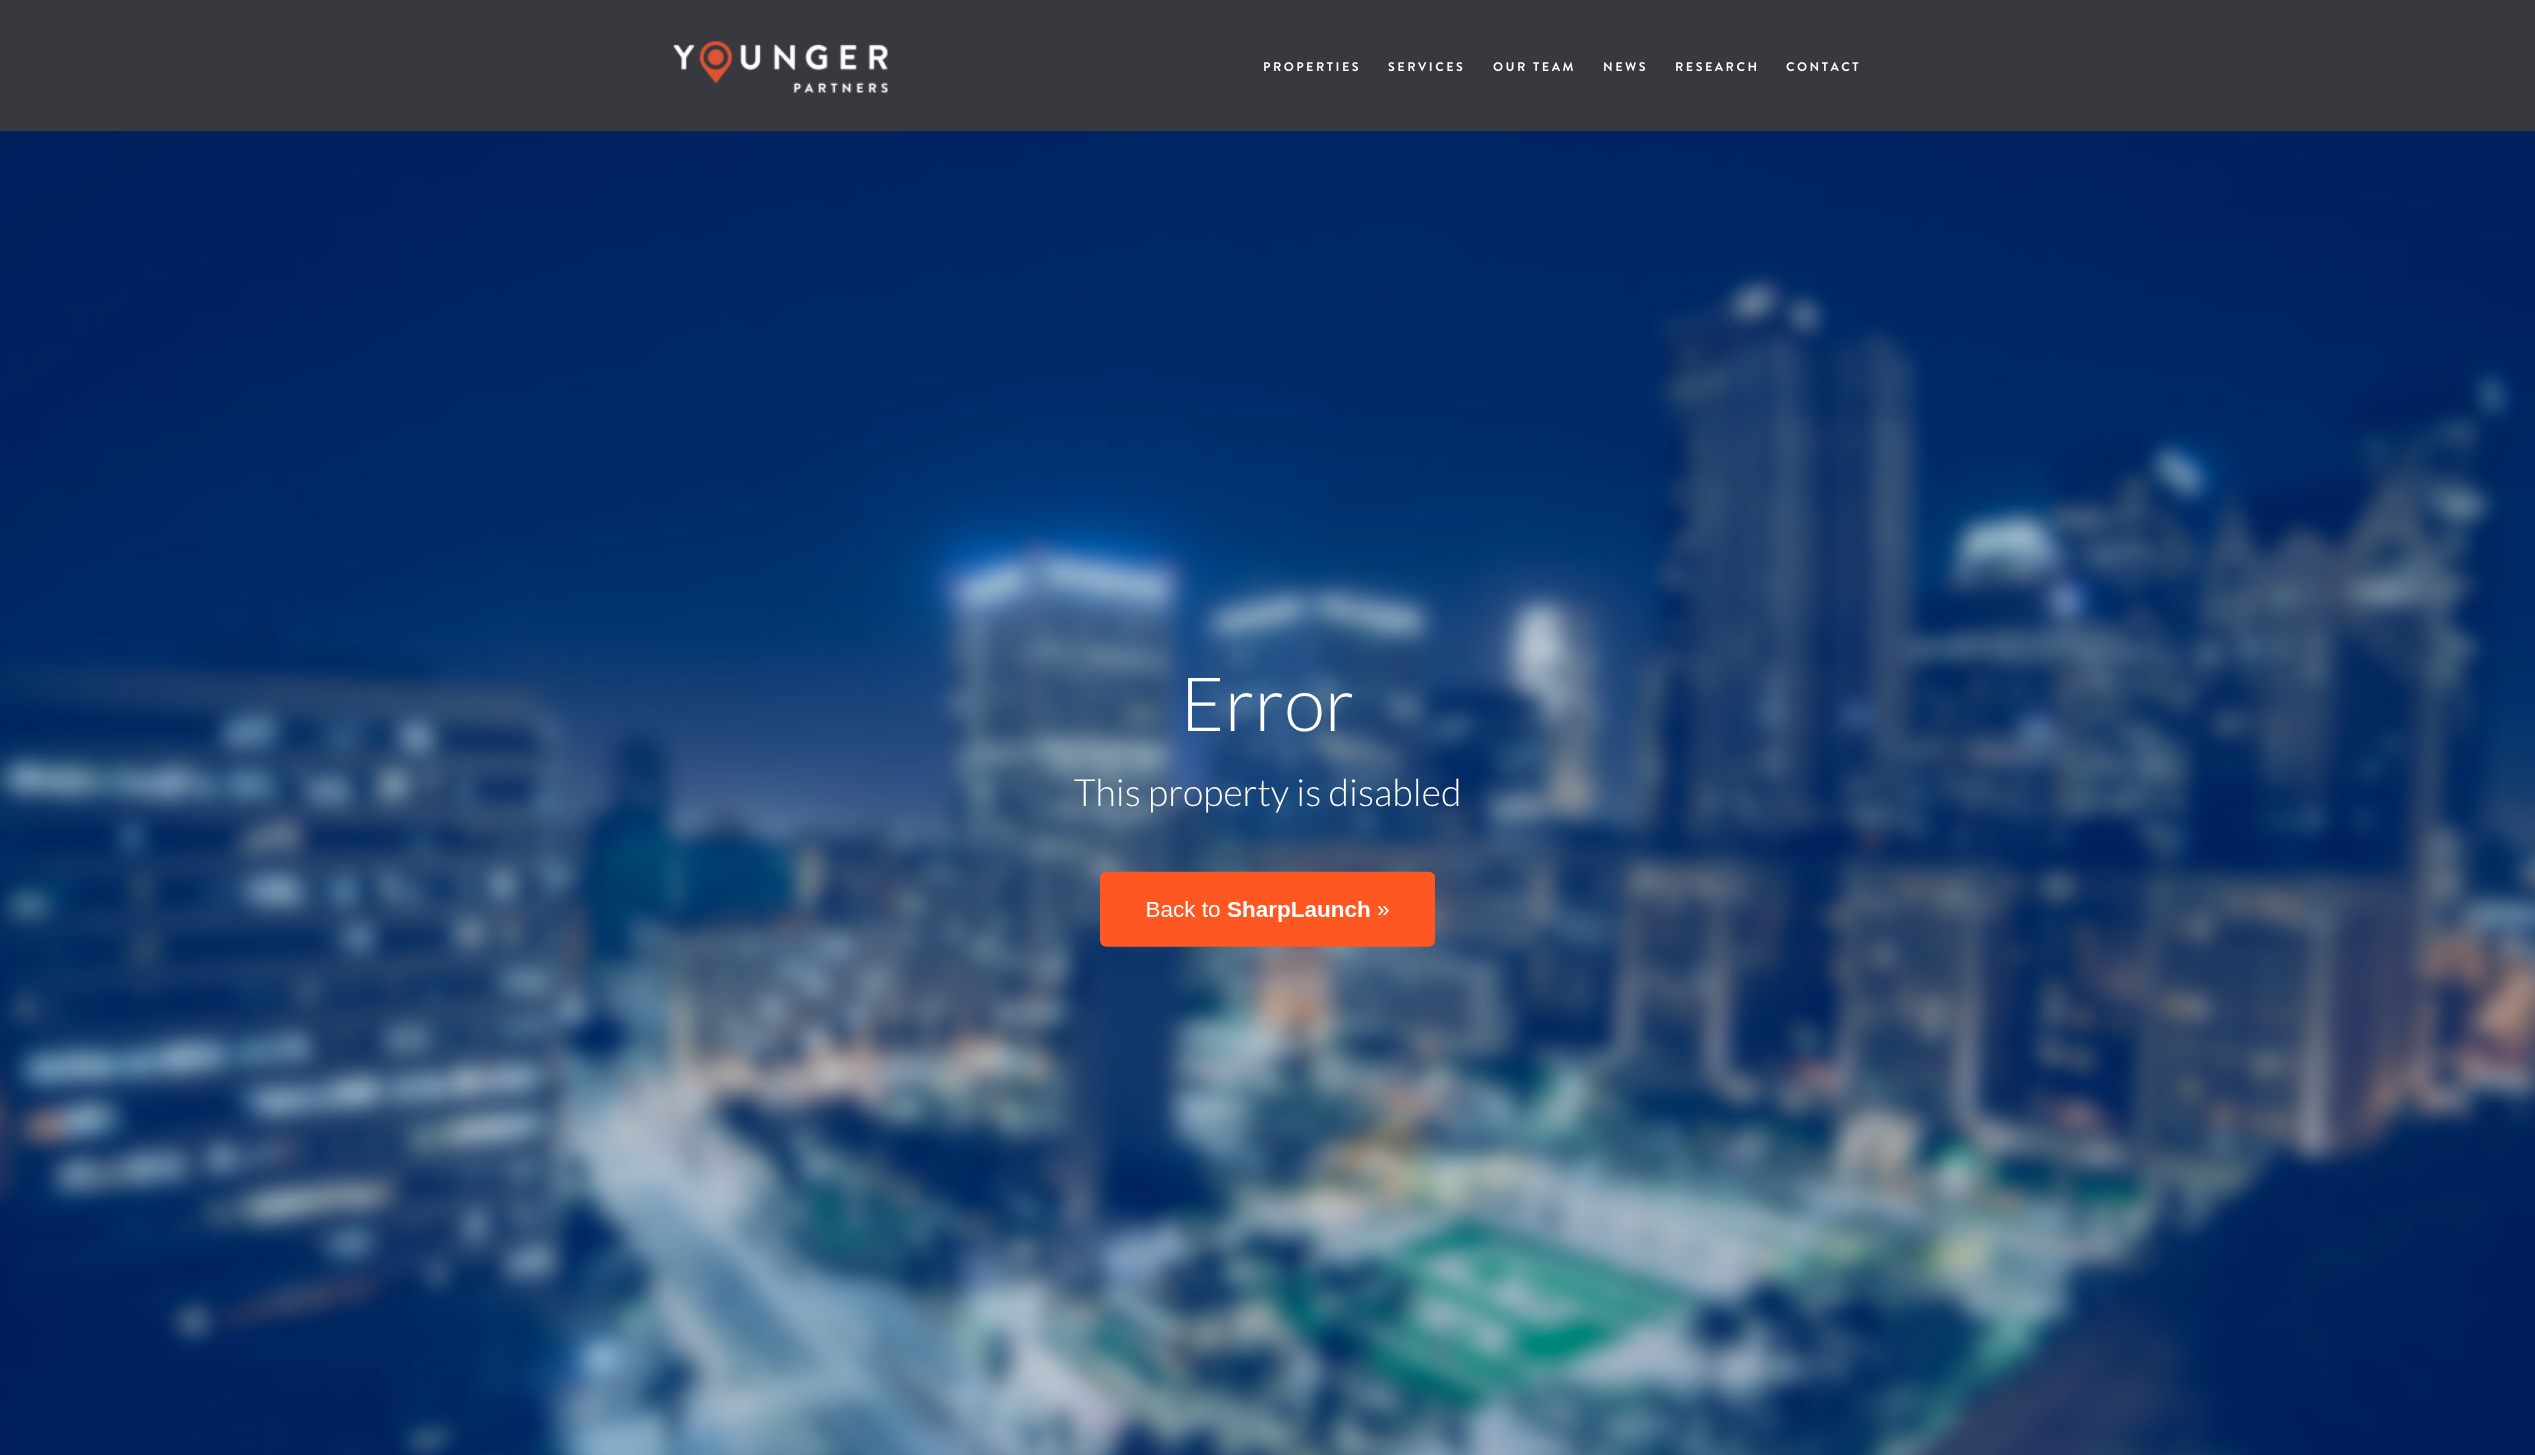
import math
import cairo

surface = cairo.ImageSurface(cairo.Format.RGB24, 2535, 1455)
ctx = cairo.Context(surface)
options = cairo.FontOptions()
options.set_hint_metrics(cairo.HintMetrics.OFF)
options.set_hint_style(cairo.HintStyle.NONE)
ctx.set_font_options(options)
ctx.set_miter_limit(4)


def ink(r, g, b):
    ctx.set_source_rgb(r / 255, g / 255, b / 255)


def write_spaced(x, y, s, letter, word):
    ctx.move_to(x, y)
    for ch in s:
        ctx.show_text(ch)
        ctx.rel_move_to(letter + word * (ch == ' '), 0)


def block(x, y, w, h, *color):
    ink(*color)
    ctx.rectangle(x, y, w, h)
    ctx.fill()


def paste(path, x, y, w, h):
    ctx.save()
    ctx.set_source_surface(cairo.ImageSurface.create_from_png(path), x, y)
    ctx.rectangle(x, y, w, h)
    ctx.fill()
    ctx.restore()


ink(255, 255, 255)
ctx.paint()
block(0, 0, 2535, 131, 55, 57, 62)
paste("pic2.png", 0, 131, 2535, 1324)
paste("pic1.png", 673, 41, 226, 91)
ctx.select_font_face("Brandon Grotesque", cairo.FontSlant.NORMAL, cairo.FontWeight.BOLD)
ctx.set_font_size(12.5)
ink(255, 255, 255)
write_spaced(1263, 71, "PROPERTIES", 2.5, 0)
write_spaced(1388, 71, "SERVICES", 2.5, 0)
write_spaced(1493, 71, "OUR TEAM", 2.5, 0)
write_spaced(1603, 71, "NEWS", 2.5, 0)
write_spaced(1675, 71, "RESEARCH", 2.5, 0)
write_spaced(1786, 71, "CONTACT", 2.5, 0)
surface.write_to_png("screenshot.png")
